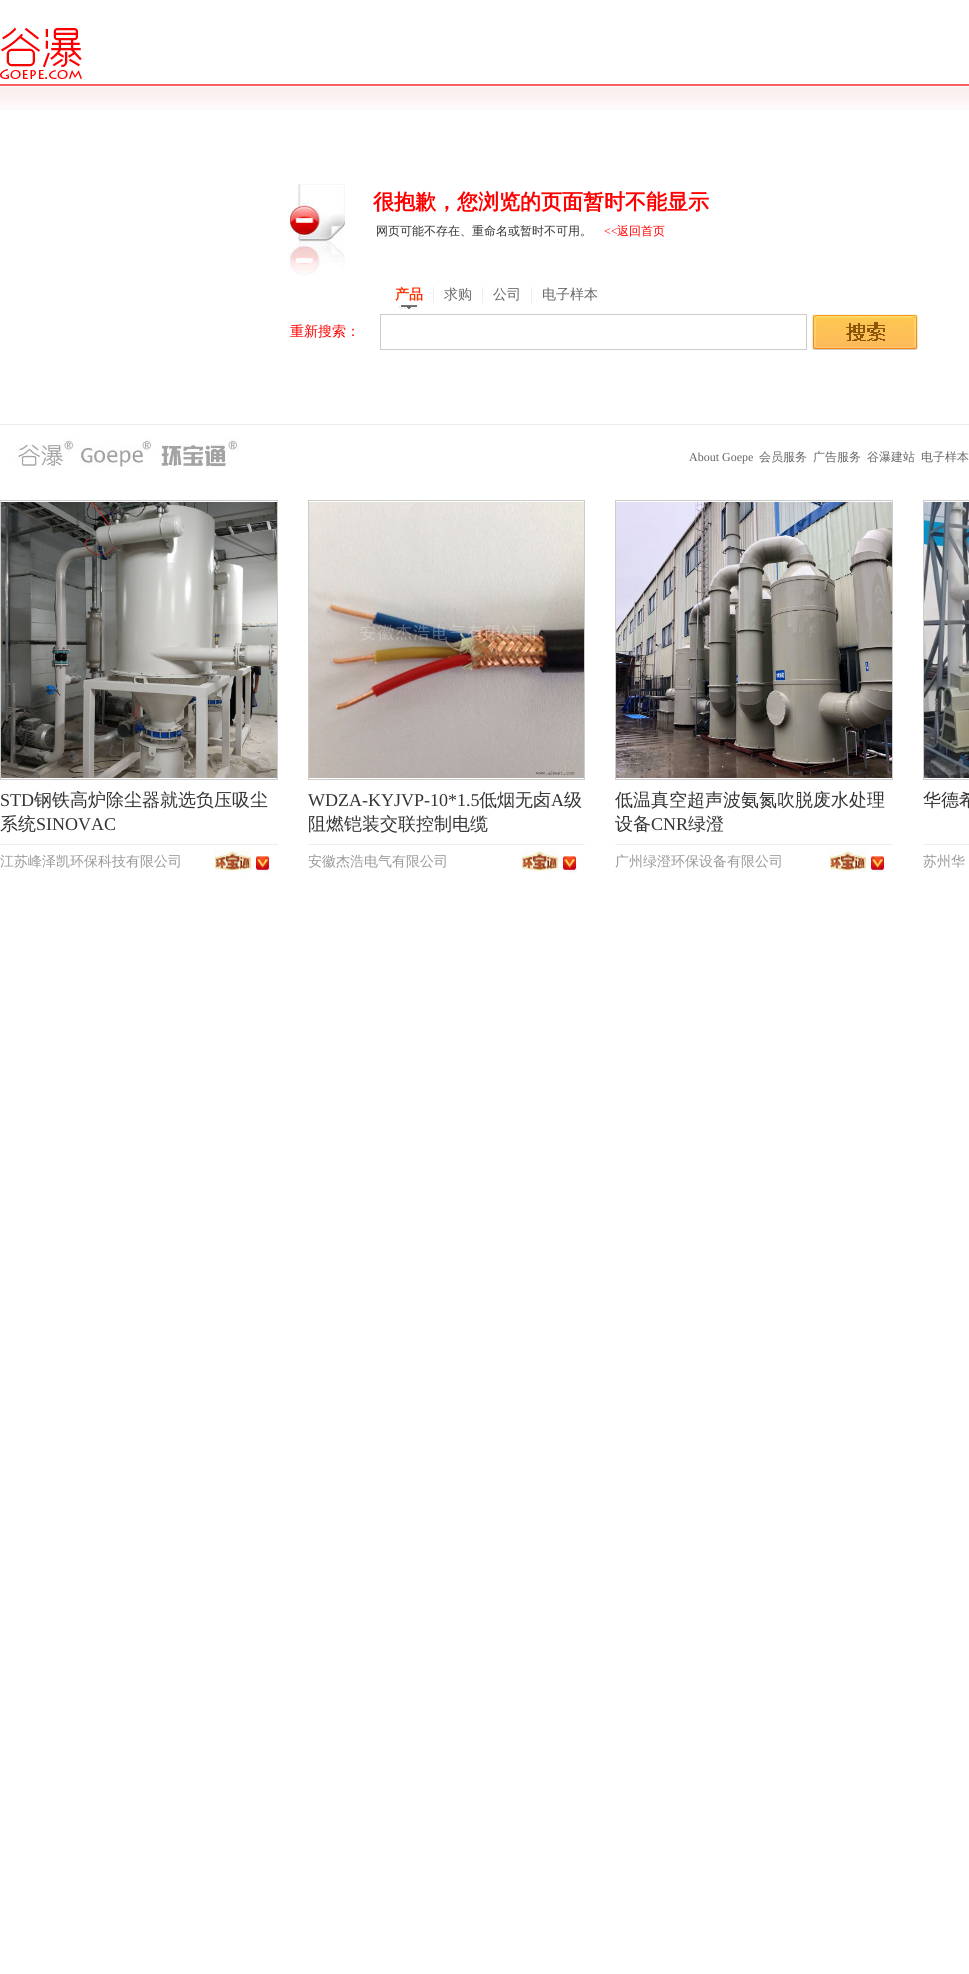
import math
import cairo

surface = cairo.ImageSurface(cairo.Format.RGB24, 969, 1974)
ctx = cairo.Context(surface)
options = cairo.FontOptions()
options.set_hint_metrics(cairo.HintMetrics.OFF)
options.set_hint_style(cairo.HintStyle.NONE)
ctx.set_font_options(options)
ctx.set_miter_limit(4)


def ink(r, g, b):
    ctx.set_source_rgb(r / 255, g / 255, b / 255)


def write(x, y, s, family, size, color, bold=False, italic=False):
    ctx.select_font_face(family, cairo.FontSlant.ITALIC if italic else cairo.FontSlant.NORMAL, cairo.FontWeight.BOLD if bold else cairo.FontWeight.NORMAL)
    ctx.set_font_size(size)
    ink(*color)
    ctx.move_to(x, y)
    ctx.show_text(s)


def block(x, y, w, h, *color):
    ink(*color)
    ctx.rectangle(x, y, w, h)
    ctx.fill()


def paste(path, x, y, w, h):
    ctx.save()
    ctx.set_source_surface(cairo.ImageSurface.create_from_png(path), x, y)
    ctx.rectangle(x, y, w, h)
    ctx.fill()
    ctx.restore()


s1 = dict(family="WenQuanYi Zen Hei", size=21, color=(255, 0, 0), bold=True)
s2 = dict(family="WenQuanYi Zen Hei Medium", size=12, color=(51, 51, 51))
s3 = dict(family="Liberation Serif", size=12, color=(255, 0, 0))
s4 = dict(family="WenQuanYi Zen Hei Medium", size=12, color=(255, 0, 0))
s5 = dict(family="WenQuanYi Zen Hei", size=14, color=(255, 51, 0), bold=True)
s6 = dict(family="WenQuanYi Zen Hei Medium", size=14, color=(102, 102, 102))
s7 = dict(family="WenQuanYi Zen Hei Medium", size=14, color=(255, 0, 0))
s8 = dict(family="Liberation Serif", size=12, color=(102, 102, 102))
s9 = dict(family="WenQuanYi Zen Hei Medium", size=12, color=(102, 102, 102))
s10 = dict(family="Liberation Serif", size=18, color=(51, 51, 51))
s11 = dict(family="WenQuanYi Zen Hei Medium", size=18, color=(51, 51, 51))
s12 = dict(family="WenQuanYi Zen Hei Medium", size=14, color=(153, 153, 153))

ink(255, 255, 255)
ctx.paint()
paste("pic1.png", 0, 27, 82, 52)
paste("pic2.png", 0, 84, 969, 26)
paste("pic3.png", 288, 184, 57, 93)
write(373, 209, "很抱歉，您浏览的页面暂时不能显示", **s1)
write(376, 235, "网页可能不存在、重命名或暂时不可用。", **s2)
write(604, 235, "<<", **s3)
write(617, 235, "返回首页", **s4)
paste("pic4.png", 399, 305, 20, 4)
write(395, 299, "产品", **s5)
block(433, 287, 1, 16, 238, 238, 238)
write(444, 299, "求购", **s6)
block(482, 287, 1, 16, 238, 238, 238)
write(493, 299, "公司", **s6)
block(531, 287, 1, 16, 238, 238, 238)
write(542, 299, "电子样本", **s6)
ctx.rectangle(380.5, 314.5, 426, 35)
ink(204, 204, 204)
ctx.set_line_width(1)
ctx.stroke()
paste("pic5.png", 812, 314, 106, 36)
write(290, 336, "重新搜索：", **s7)
paste("pic6.png", 15, 436, 224, 32)
block(0, 424, 969, 1, 237, 237, 237)
write(689, 461, "About Goepe", **s8)
write(759, 461, "会员服务", **s9)
write(813, 461, "广告服务", **s9)
write(867, 461, "谷瀑建站", **s9)
write(921, 461, "电子样本", **s9)
ctx.rectangle(0.5, 500.5, 277, 279)
ink(204, 204, 204)
ctx.stroke()
paste("pic7.png", 1, 502, 276, 276)
write(0, 806, "STD", **s10)
write(34, 806, "钢铁高炉除尘器就选负压吸尘", **s11)
write(0, 830, "系统", **s11)
write(36, 830, "SINOVAC", **s10)
block(0, 844, 278, 1, 238, 238, 238)
write(0, 866, "江苏峰泽凯环保科技有限公司", **s12)
paste("pic8.png", 214, 849, 56, 24)
ctx.rectangle(308.5, 500.5, 276, 279)
ink(204, 204, 204)
ctx.stroke()
paste("pic9.png", 309, 502, 275, 276)
write(308, 806, "WDZA-KYJVP-10*1.5", **s10)
write(479, 806, "低烟无卤", **s11)
write(551, 806, "A", **s10)
write(564, 806, "级", **s11)
write(308, 830, "阻燃铠装交联控制电缆", **s11)
block(308, 844, 277, 1, 238, 238, 238)
write(308, 866, "安徽杰浩电气有限公司", **s12)
paste("pic8.png", 521, 849, 56, 24)
ctx.rectangle(615.5, 500.5, 277, 279)
ink(204, 204, 204)
ctx.stroke()
paste("pic10.png", 616, 502, 276, 276)
write(615, 806, "低温真空超声波氨氮吹脱废水处理", **s11)
write(615, 830, "设备", **s11)
write(651, 830, "CNR", **s10)
write(688, 830, "绿澄", **s11)
block(615, 844, 278, 1, 238, 238, 238)
write(615, 866, "广州绿澄环保设备有限公司", **s12)
paste("pic8.png", 829, 849, 56, 24)
ctx.rectangle(923.5, 500.5, 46, 279)
ink(204, 204, 204)
ctx.stroke()
paste("pic11.png", 924, 502, 45, 276)
write(923, 806, "华德希", **s11)
block(923, 844, 46, 1, 238, 238, 238)
write(923, 866, "苏州华", **s12)
surface.write_to_png("screenshot.png")
